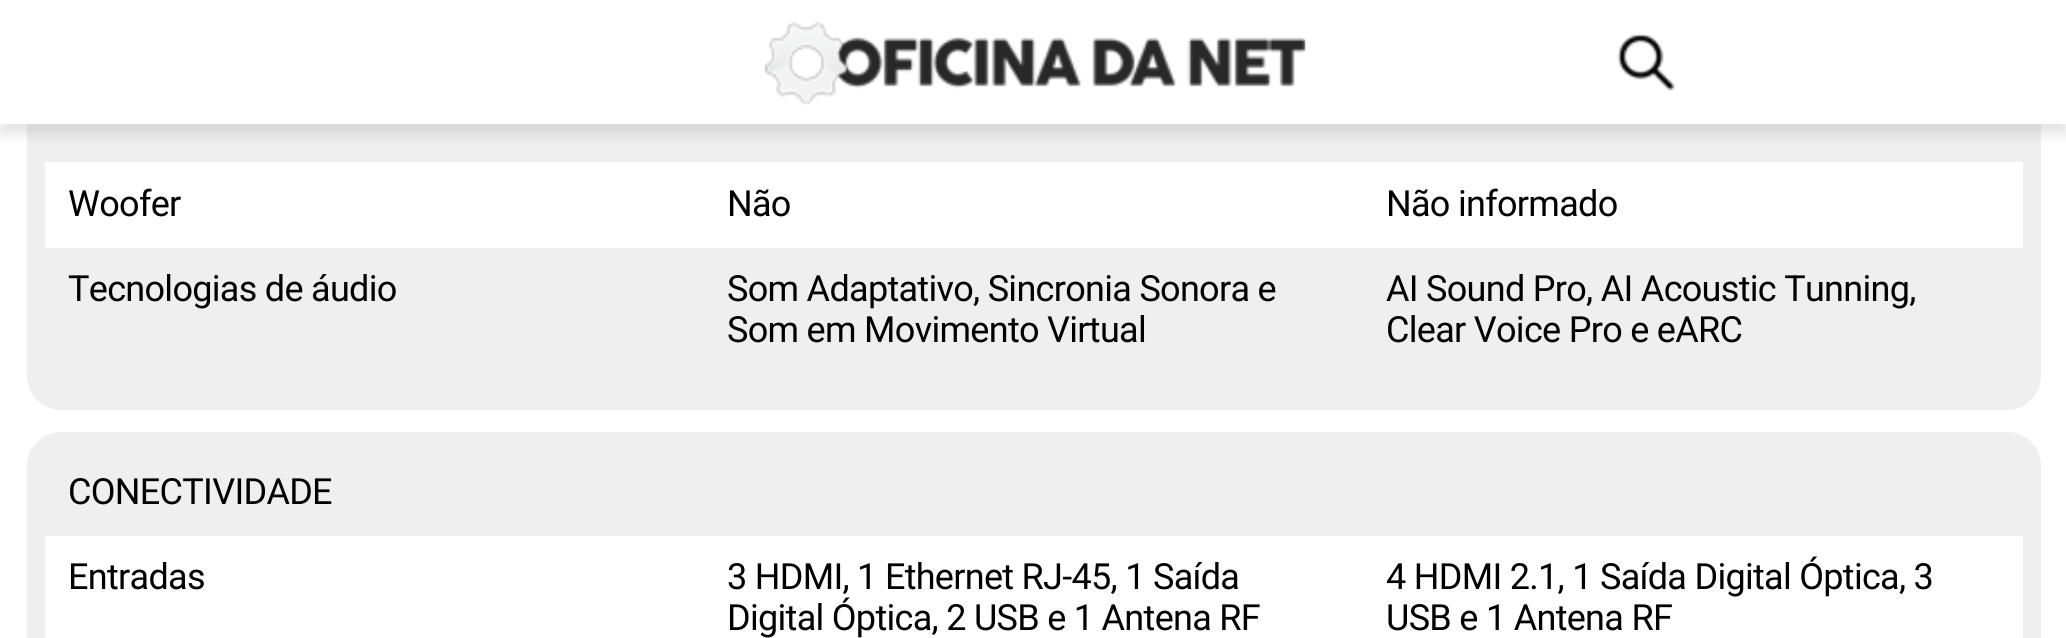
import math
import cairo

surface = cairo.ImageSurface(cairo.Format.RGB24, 2066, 638)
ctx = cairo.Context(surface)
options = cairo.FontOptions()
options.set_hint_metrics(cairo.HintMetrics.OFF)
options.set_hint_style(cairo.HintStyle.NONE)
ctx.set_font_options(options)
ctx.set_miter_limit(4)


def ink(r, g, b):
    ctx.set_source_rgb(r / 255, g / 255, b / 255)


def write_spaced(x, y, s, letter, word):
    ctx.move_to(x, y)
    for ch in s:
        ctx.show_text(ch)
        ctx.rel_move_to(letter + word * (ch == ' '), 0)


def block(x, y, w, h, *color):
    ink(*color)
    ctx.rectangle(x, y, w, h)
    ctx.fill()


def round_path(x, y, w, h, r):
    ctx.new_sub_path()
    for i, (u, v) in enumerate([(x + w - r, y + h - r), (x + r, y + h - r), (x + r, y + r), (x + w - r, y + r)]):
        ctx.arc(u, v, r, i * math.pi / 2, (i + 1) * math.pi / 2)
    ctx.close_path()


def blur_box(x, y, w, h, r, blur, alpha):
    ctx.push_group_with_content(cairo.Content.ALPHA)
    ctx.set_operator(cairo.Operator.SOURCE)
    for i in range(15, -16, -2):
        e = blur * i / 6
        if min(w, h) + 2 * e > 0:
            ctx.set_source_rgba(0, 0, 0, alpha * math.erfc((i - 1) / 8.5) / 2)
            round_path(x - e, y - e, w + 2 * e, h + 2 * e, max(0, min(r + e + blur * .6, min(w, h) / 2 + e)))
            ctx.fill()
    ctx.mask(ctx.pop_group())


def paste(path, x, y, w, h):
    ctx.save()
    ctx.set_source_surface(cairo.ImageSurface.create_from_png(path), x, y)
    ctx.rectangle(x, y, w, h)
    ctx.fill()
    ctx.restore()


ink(255, 255, 255)
ctx.paint()
ink(239, 239, 239)
round_path(27, -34, 2014, 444, 34)
ctx.fill()
ink(0, 0, 0)
blur_box(0, 11, 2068, 124, 0, 5.5, 0.1)
block(0, 0, 2066, 124, 255, 255, 255)
paste("pic1.png", 764, 21, 542, 84)
paste("pic2.png", 1617, 33, 58, 58)
block(45, 162, 1978, 86, 255, 255, 255)
ctx.select_font_face("Roboto")
ctx.set_font_size(36)
ink(0, 0, 0)
write_spaced(68, 216, "Woofer", -0.7, 0)
write_spaced(727, 216, "Não", -0.7, 0)
write_spaced(1386, 216, "Não informado", -0.7, 0)
write_spaced(68, 301, "Tecnologias de áudio", -0.7, 0)
write_spaced(727, 301, "Som Adaptativo, Sincronia Sonora e", -0.7, 0)
write_spaced(727, 342, "Som em Movimento Virtual", -0.7, 0)
write_spaced(1386, 301, "AI Sound Pro, AI Acoustic Tunning,", -0.7, 0)
write_spaced(1386, 342, "Clear Voice Pro e eARC", -0.7, 0)
ink(239, 239, 239)
round_path(27, 432, 2014, 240, 34)
ctx.fill()
ink(0, 0, 0)
write_spaced(68, 504, "CONECTIVIDADE", -0.7, 0)
block(45, 536, 1978, 102, 255, 255, 255)
ink(0, 0, 0)
write_spaced(68, 589, "Entradas", -0.7, 0)
write_spaced(727, 589, "3 HDMI, 1 Ethernet RJ-45, 1 Saída", -0.7, 0)
write_spaced(727, 630, "Digital Óptica, 2 USB e 1 Antena RF", -0.7, 0)
write_spaced(1386, 589, "4 HDMI 2.1, 1 Saída Digital Óptica, 3", -0.7, 0)
write_spaced(1386, 630, "USB e 1 Antena RF", -0.7, 0)
surface.write_to_png("screenshot.png")
